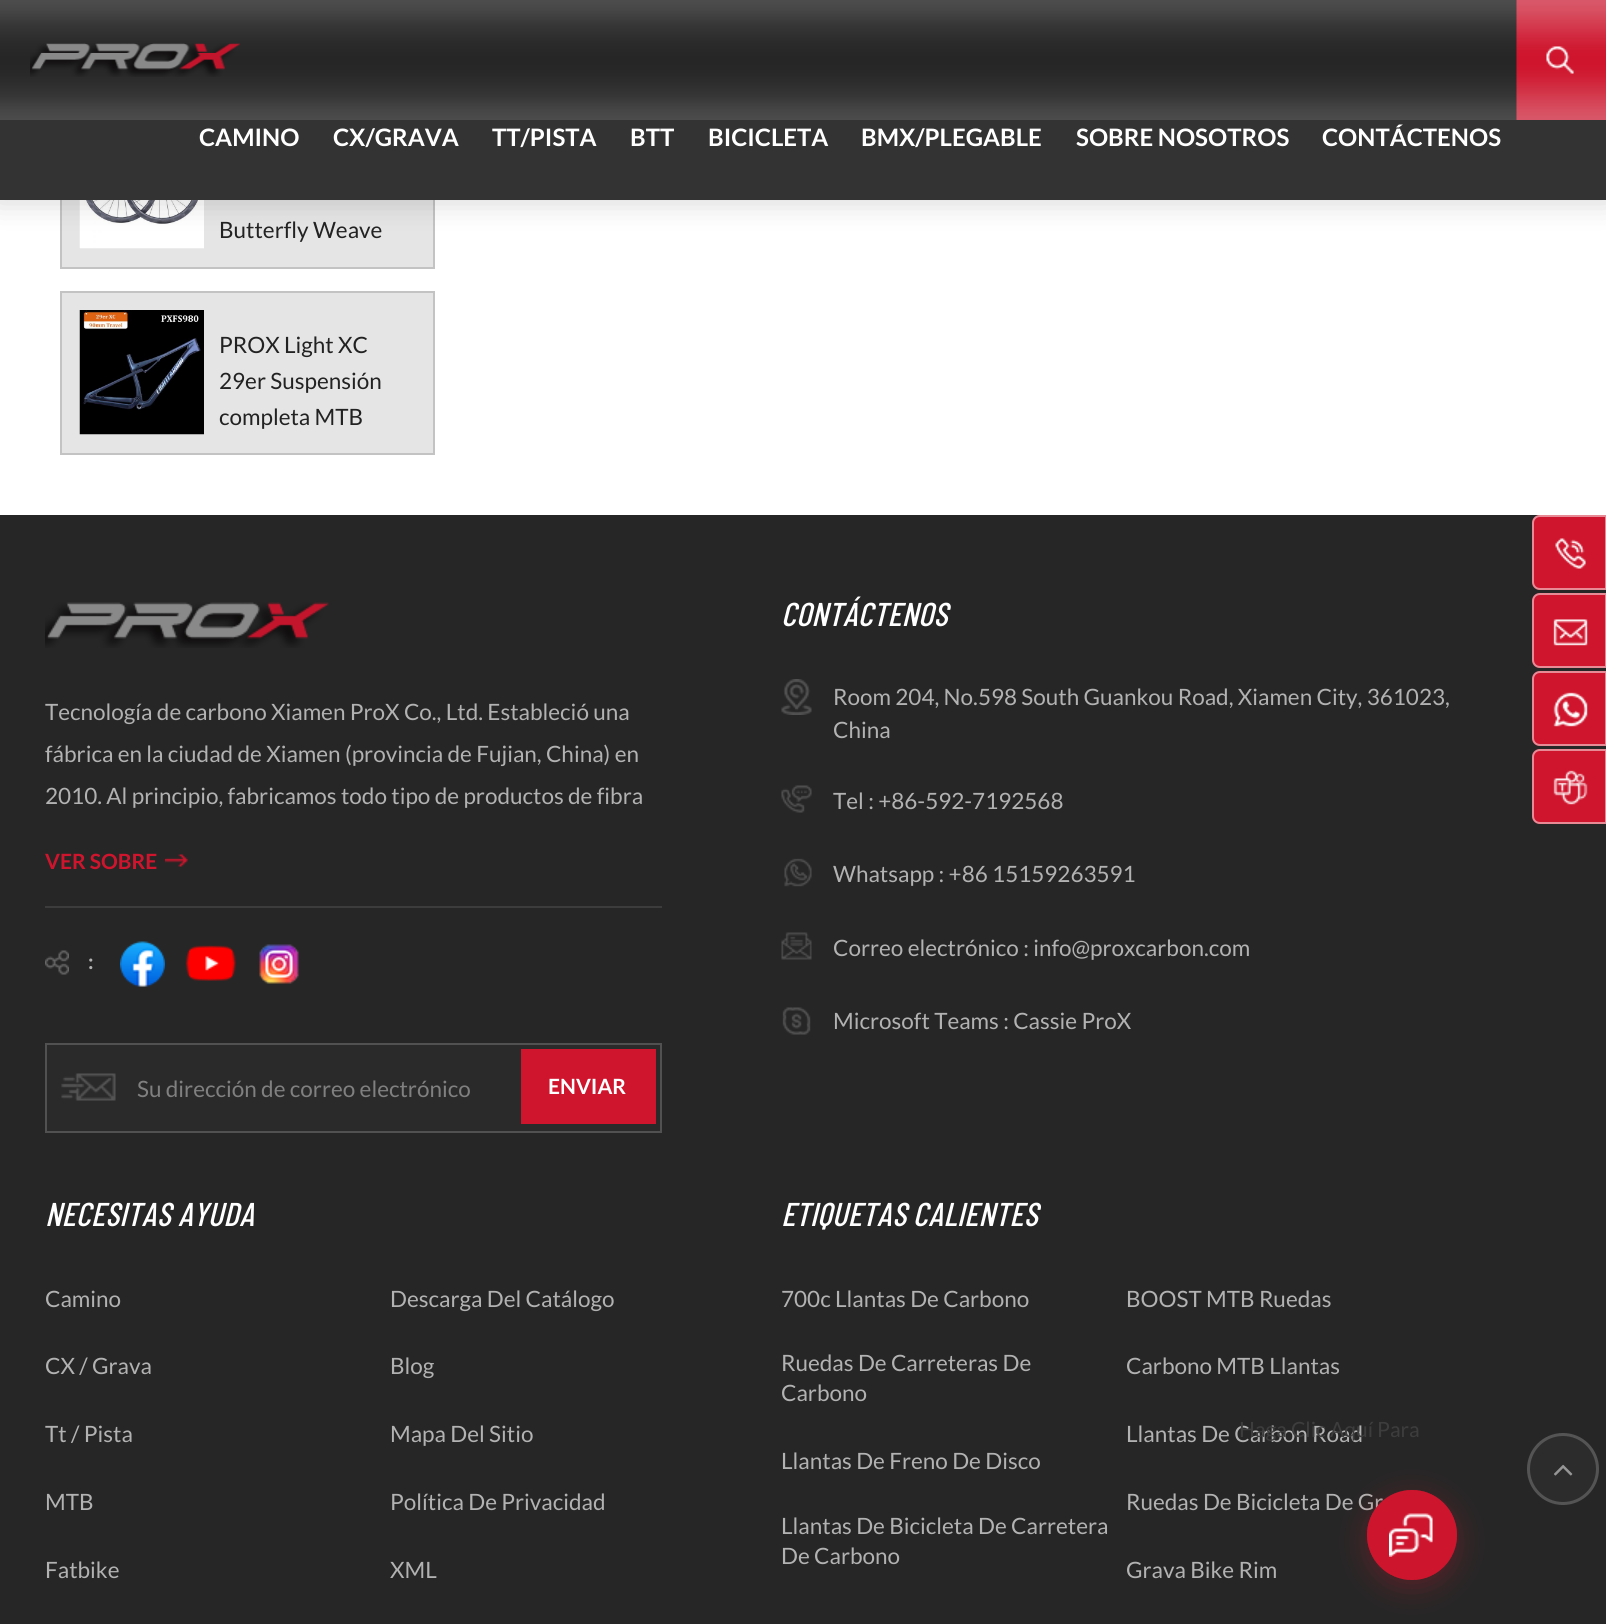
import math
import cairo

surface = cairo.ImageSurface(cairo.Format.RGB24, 1606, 1624)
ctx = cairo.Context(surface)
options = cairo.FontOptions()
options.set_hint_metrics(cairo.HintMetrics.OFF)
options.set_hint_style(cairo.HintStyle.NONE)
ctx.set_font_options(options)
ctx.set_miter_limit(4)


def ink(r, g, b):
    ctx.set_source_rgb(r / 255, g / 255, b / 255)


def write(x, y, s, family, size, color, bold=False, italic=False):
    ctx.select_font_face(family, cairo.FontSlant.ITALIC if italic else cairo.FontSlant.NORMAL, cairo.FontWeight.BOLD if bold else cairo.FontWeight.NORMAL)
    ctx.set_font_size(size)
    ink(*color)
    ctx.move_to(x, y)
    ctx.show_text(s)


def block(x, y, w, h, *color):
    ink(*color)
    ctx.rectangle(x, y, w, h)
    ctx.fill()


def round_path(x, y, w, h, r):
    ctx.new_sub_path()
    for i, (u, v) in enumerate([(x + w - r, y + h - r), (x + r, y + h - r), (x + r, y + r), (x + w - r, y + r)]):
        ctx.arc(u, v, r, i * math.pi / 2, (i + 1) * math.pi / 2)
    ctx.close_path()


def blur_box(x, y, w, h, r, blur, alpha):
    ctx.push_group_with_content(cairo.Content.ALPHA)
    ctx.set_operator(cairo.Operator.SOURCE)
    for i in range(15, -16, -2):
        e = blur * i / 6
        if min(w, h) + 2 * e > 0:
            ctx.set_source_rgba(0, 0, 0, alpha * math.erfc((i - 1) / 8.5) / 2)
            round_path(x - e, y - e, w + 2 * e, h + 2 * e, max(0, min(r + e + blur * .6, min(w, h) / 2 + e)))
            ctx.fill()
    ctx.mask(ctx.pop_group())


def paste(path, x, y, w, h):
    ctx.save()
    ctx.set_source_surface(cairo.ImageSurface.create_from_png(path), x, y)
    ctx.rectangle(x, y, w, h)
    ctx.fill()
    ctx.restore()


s1 = dict(family="Lato", size=24, color=(255, 255, 255), bold=True)
s2 = dict(family="Lato", size=22.5, color=(34, 34, 34))
s3 = dict(family="Lato", size=22.5, color=(178, 178, 178))
s4 = dict(family="Lato", size=21, color=(207, 21, 45), bold=True)
s5 = dict(family="Lato", size=21, color=(178, 178, 178), bold=True)
s6 = dict(family="Lato", size=22.5, color=(128, 128, 128))
s7 = dict(family="Lato", size=21, color=(255, 255, 255), bold=True)
s8 = dict(family="Barlow Condensed Medium", size=33, color=(255, 255, 255), italic=True)
s9 = dict(family="Lato", size=21, color=(61, 61, 61))

ink(255, 255, 255)
ctx.paint()
block(62, 200, 371, 67, 229, 229, 229)
ctx.rectangle(61, 106, 373, 162)
ink(195, 195, 195)
ctx.stroke()
paste("pic5.png", 79, 200, 125, 49)
ink(0, 0, 0)
blur_box(-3, -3, 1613, 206, 0, 15, 0.15)
block(0, 120, 1606, 80, 51, 51, 51)
paste("pic1.png", 0, 0, 1517, 120)
paste("pic2.png", 30, 43, 210, 34)
paste("pic3.png", 1516, 0, 90, 120)
paste("pic4.png", 1546, 46, 28, 28)
write(199, 146, "CAMINO", **s1)
write(333, 146, "CX/GRAVA", **s1)
write(492, 146, "TT/PISTA", **s1)
write(630, 146, "BTT", **s1)
write(708, 146, "BICICLETA", **s1)
write(861, 146, "BMX/PLEGABLE", **s1)
write(1076, 146, "SOBRE NOSOTROS", **s1)
write(1322, 146, "CONTÁCTENOS", **s1)
write(219, 238, "Butterfly Weave", **s2)
ink(229, 229, 229)
ctx.rectangle(61, 292, 373, 162)
ctx.fill_preserve()
ink(195, 195, 195)
ctx.stroke()
paste("pic6.png", 79, 310, 125, 125)
write(219, 353, "PROX Light XC", **s2)
write(219, 389, "29er Suspensión", **s2)
write(219, 425, "completa MTB", **s2)
block(0, 515, 1606, 1109, 38, 38, 38)
paste("pic7.png", 45, 602, 284, 46)
write(45, 720, "Tecnología de carbono Xiamen ProX Co., Ltd. Estableció una", **s3)
write(45, 762, "fábrica en la ciudad de Xiamen (provincia de Fujian, China) en", **s3)
write(45, 804, "2010. Al principio, fabricamos todo tipo de productos de fibra", **s3)
write(45, 869, "VER SOBRE", **s4)
paste("pic8.png", 165, 854, 23, 13)
block(45, 906, 617, 2, 60, 60, 60)
paste("pic9.png", 45, 950, 24, 25)
write(88, 969, ":", **s5)
paste("pic10.png", 120, 941, 45, 46)
paste("pic11.png", 185, 945, 51, 36)
paste("pic12.png", 259, 944, 40, 40)
ink(42, 42, 42)
ctx.rectangle(46, 1044, 615, 88)
ctx.fill_preserve()
ink(81, 81, 81)
ctx.stroke()
paste("pic13.png", 61, 1073, 55, 28)
write(137, 1097, "Su dirección de correo electrónico", **s6)
block(521, 1049, 135, 75, 207, 21, 45)
write(548, 1094, "ENVIAR", **s7)
write(781, 626, "CONTÁCTENOS", **s8)
paste("pic14.png", 781, 679, 31, 36)
write(833, 705, "Room 204, No.598 South Guankou Road, Xiamen City, 361023,", **s3)
write(833, 738, "China", **s3)
paste("pic15.png", 781, 785, 31, 28)
write(833, 809, "Tel : +86-592-7192568", **s3)
paste("pic16.png", 784, 858, 28, 29)
write(833, 882, "Whatsapp : +86 15159263591", **s3)
paste("pic17.png", 781, 932, 31, 28)
write(833, 956, "Correo electrónico : info@proxcarbon.com", **s3)
paste("pic18.png", 782, 1007, 29, 28)
write(833, 1029, "Microsoft Teams : Cassie ProX", **s3)
write(45, 1226, "NECESITAS AYUDA", **s8)
write(45, 1307, "Camino", **s3)
write(390, 1307, "Descarga Del Catálogo", **s3)
write(45, 1374, "CX / Grava", **s3)
write(390, 1374, "Blog", **s3)
write(45, 1442, "Tt / Pista", **s3)
write(390, 1442, "Mapa Del Sitio", **s3)
write(45, 1510, "MTB", **s3)
write(390, 1510, "Política De Privacidad", **s3)
write(45, 1578, "Fatbike", **s3)
write(390, 1578, "XML", **s3)
write(781, 1226, "ETIQUETAS CALIENTES", **s8)
write(781, 1307, "700c Llantas De Carbono", **s3)
write(1126, 1307, "BOOST MTB Ruedas", **s3)
write(781, 1371, "Ruedas De Carreteras De", **s3)
ctx.save()
ctx.rectangle(782, 1280, 690, 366)
ctx.clip()
write(781, 1401, "Carbono", **s3)
ctx.restore()
write(1126, 1374, "Carbono MTB Llantas", **s3)
write(1126, 1442, "Llantas De Carbon Road", **s3)
write(781, 1469, "Llantas De Freno De Disco", **s3)
write(1126, 1510, "Ruedas De Bicicleta De Gr", **s3)
write(781, 1534, "Llantas De Bicicleta De Carretera", **s3)
write(781, 1564, "De Carbono", **s3)
write(1126, 1578, "Grava Bike Rim", **s3)
ink(207, 21, 45)
ctx.new_path()
ctx.move_to(1540, 515)
ctx.line_to(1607, 515)
ctx.line_to(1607, 590)
ctx.line_to(1540, 590)
ctx.curve_to(1535.5, 590, 1532, 586.5, 1532, 582)
ctx.line_to(1532, 523)
ctx.curve_to(1532, 518.5, 1535.5, 515, 1540, 515)
ctx.close_path()
ctx.fill()
ctx.new_path()
ctx.move_to(1540, 516)
ctx.line_to(1606, 516)
ctx.line_to(1606, 589)
ctx.line_to(1540, 589)
ctx.curve_to(1536, 589, 1533, 586, 1533, 582)
ctx.line_to(1533, 523)
ctx.curve_to(1533, 519, 1536, 516, 1540, 516)
ctx.close_path()
ctx.set_source_rgba(1, 1, 1, 0.5)
ctx.stroke()
paste("pic19.png", 1555, 538, 31, 31)
ink(207, 21, 45)
ctx.new_path()
ctx.move_to(1540, 593)
ctx.line_to(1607, 593)
ctx.line_to(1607, 668)
ctx.line_to(1540, 668)
ctx.curve_to(1535.5, 668, 1532, 664.5, 1532, 660)
ctx.line_to(1532, 601)
ctx.curve_to(1532, 596.5, 1535.5, 593, 1540, 593)
ctx.close_path()
ctx.fill()
ctx.new_path()
ctx.move_to(1540, 594)
ctx.line_to(1606, 594)
ctx.line_to(1606, 667)
ctx.line_to(1540, 667)
ctx.curve_to(1536, 667, 1533, 664, 1533, 660)
ctx.line_to(1533, 601)
ctx.curve_to(1533, 597, 1536, 594, 1540, 594)
ctx.close_path()
ctx.set_source_rgba(1, 1, 1, 0.5)
ctx.stroke()
paste("pic20.png", 1553, 619, 35, 27)
ink(207, 21, 45)
ctx.new_path()
ctx.move_to(1540, 671)
ctx.line_to(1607, 671)
ctx.line_to(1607, 746)
ctx.line_to(1540, 746)
ctx.curve_to(1535.5, 746, 1532, 742.5, 1532, 738)
ctx.line_to(1532, 679)
ctx.curve_to(1532, 674.5, 1535.5, 671, 1540, 671)
ctx.close_path()
ctx.fill()
ctx.new_path()
ctx.move_to(1540, 672)
ctx.line_to(1606, 672)
ctx.line_to(1606, 745)
ctx.line_to(1540, 745)
ctx.curve_to(1536, 745, 1533, 742, 1533, 738)
ctx.line_to(1533, 679)
ctx.curve_to(1533, 675, 1536, 672, 1540, 672)
ctx.close_path()
ctx.set_source_rgba(1, 1, 1, 0.5)
ctx.stroke()
paste("pic21.png", 1553, 692, 35, 35)
ink(207, 21, 45)
ctx.new_path()
ctx.move_to(1540, 749)
ctx.line_to(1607, 749)
ctx.line_to(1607, 824)
ctx.line_to(1540, 824)
ctx.curve_to(1535.5, 824, 1532, 820.5, 1532, 816)
ctx.line_to(1532, 757)
ctx.curve_to(1532, 752.5, 1535.5, 749, 1540, 749)
ctx.close_path()
ctx.fill()
ctx.new_path()
ctx.move_to(1540, 750)
ctx.line_to(1606, 750)
ctx.line_to(1606, 823)
ctx.line_to(1540, 823)
ctx.curve_to(1536, 823, 1533, 820, 1533, 816)
ctx.line_to(1533, 757)
ctx.curve_to(1533, 753, 1536, 750, 1540, 750)
ctx.close_path()
ctx.set_source_rgba(1, 1, 1, 0.5)
ctx.stroke()
paste("pic22.png", 1553, 770, 35, 35)
ink(207, 21, 45)
blur_box(1367, 1497, 90, 90, 45, 15, 0.3)
ink(207, 21, 45)
ctx.arc(1412, 1535, 45, 0, 2 * math.pi)
ctx.fill()
write(1239, 1437, "Haga Clic Aquí Para", **s9)
ctx.set_source_rgba(0.812, 0.082, 0.176, 0.25)
ctx.new_path()
ctx.arc(1412, 1535, 45, 0, 2 * math.pi)
ctx.fill()
ctx.arc(1412, 1535, 45, 0, 2 * math.pi)
ctx.fill()
ctx.arc(1412, 1535, 45, 0, 2 * math.pi)
ctx.fill()
paste("pic23.png", 1389, 1513, 44, 44)
ink(44, 44, 44)
ctx.arc(1563, 1469, 36, 0, 2 * math.pi)
ctx.fill()
ctx.arc(1563, 1469, 34.5, 0, 2 * math.pi)
ctx.set_source_rgba(0.573, 0.573, 0.573, 0.4)
ctx.set_line_width(3)
ctx.stroke()
paste("pic24.png", 1554, 1464, 19, 12)
surface.write_to_png("screenshot.png")
